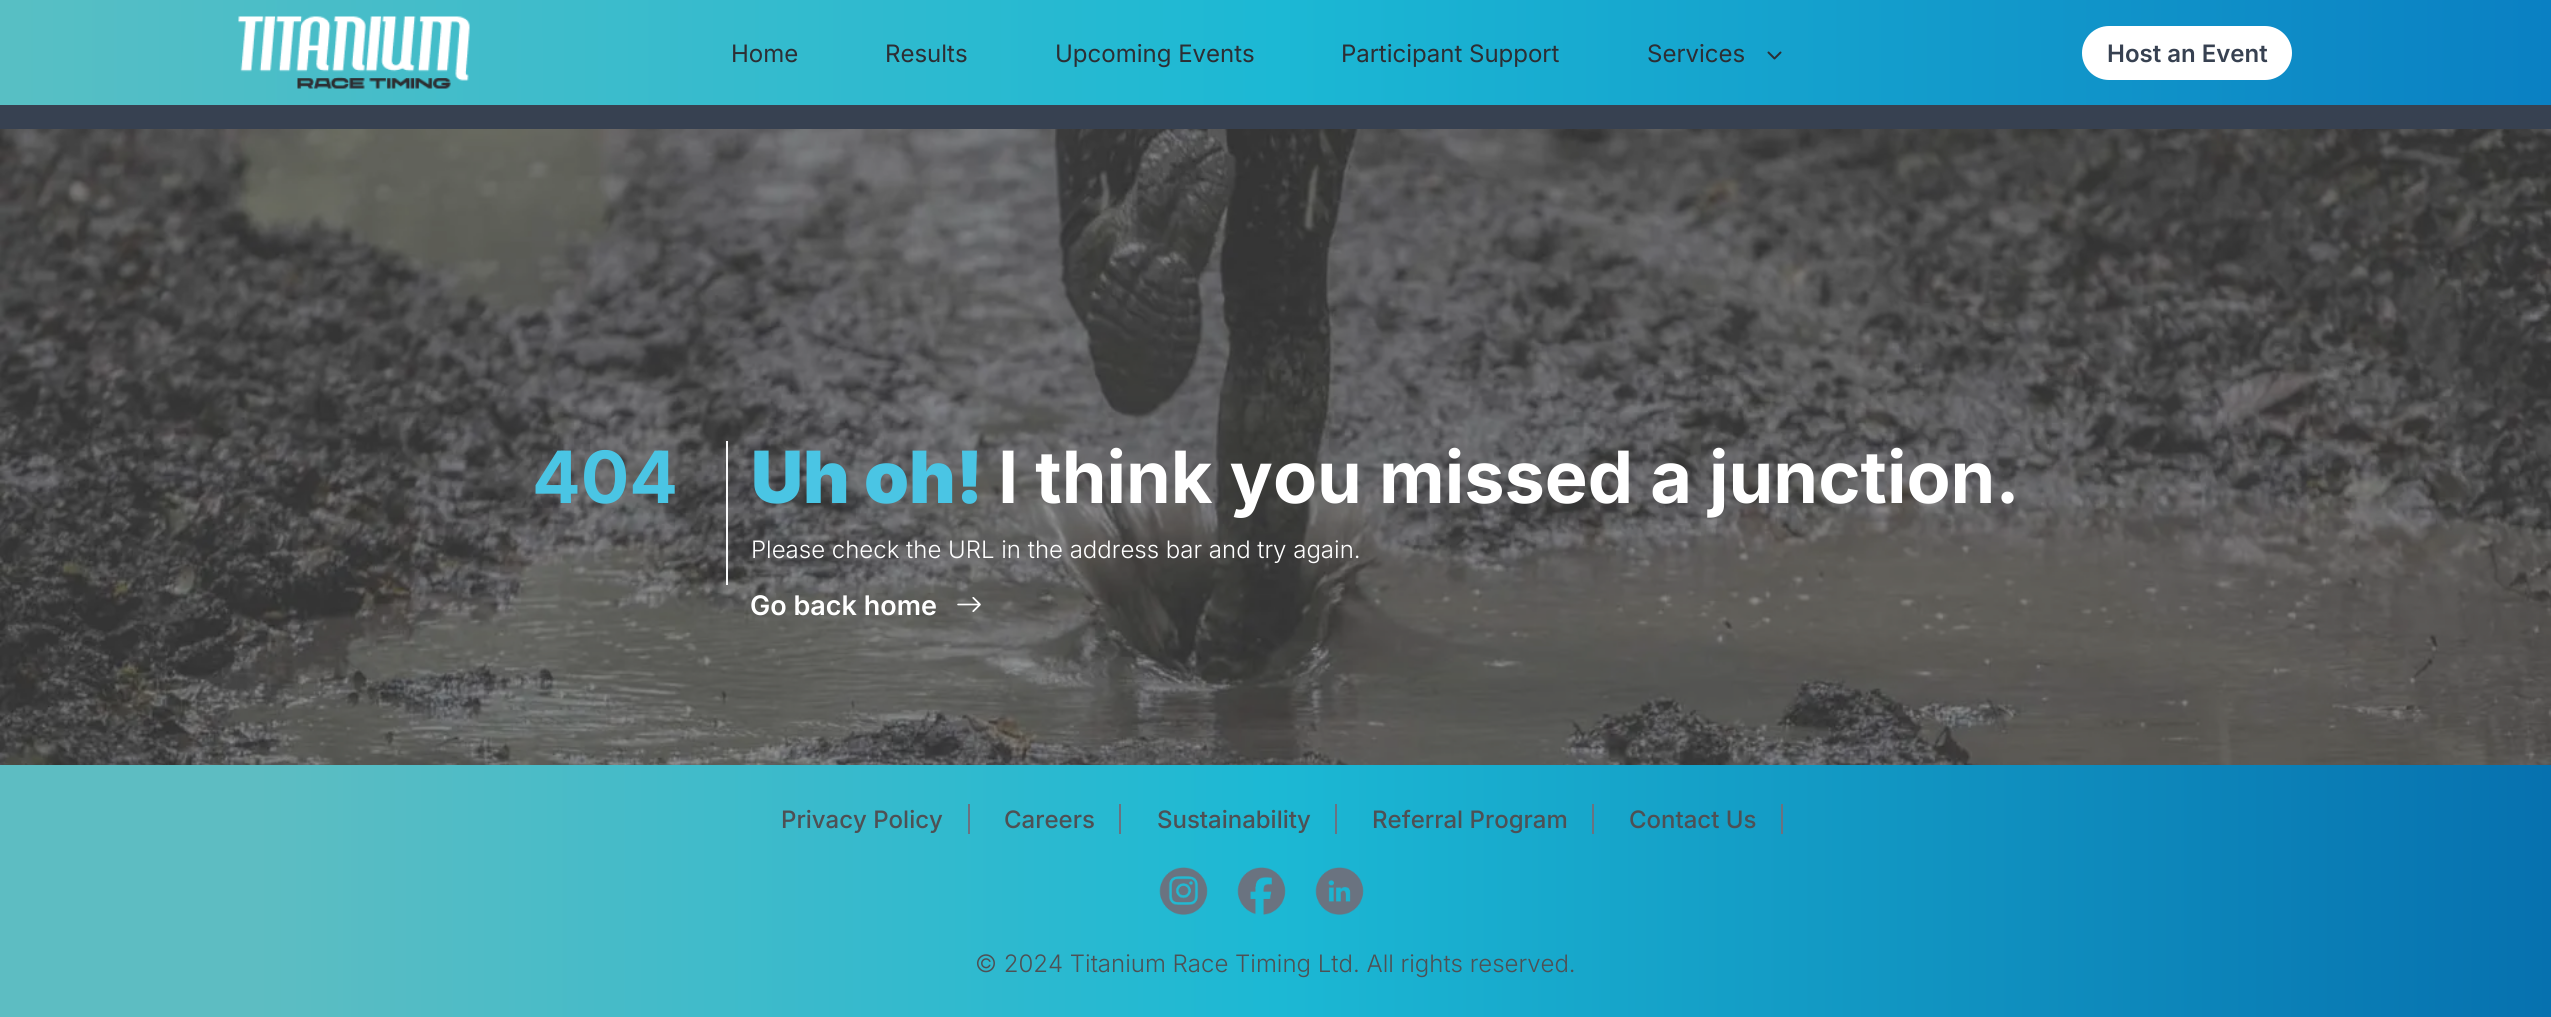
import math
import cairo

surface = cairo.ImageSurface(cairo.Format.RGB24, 2551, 1017)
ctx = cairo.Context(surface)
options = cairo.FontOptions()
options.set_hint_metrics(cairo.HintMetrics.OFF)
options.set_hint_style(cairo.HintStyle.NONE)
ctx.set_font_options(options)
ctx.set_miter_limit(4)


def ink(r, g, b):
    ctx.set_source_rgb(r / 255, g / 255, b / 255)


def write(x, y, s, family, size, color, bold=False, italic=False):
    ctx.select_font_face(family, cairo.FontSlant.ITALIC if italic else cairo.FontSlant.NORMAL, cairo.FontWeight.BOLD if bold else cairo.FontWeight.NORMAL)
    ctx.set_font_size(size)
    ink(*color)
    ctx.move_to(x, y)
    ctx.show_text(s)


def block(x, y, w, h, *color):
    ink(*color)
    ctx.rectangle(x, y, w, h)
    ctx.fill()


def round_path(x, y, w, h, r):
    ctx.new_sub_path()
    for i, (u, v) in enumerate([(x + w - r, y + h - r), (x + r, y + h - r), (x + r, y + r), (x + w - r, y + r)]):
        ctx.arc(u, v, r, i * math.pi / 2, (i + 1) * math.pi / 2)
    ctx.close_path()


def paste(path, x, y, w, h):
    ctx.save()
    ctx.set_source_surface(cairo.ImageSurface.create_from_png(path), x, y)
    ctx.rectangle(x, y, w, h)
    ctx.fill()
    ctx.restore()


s1 = dict(family="Inter", size=24, color=(45, 46, 52))
s2 = dict(family="Inter SemiBold", size=24, color=(55, 65, 81))
s3 = dict(family="Inter", size=72, color=(74, 197, 228), bold=True)
s4 = dict(family="Inter Black", size=72, color=(74, 197, 228))
s5 = dict(family="Inter", size=72, color=(255, 255, 255), bold=True)
s6 = dict(family="Inter Light", size=24, color=(255, 255, 255))
s7 = dict(family="Inter SemiBold", size=27, color=(255, 255, 255))
s8 = dict(family="Inter Medium", size=24, color=(78, 80, 84))
s9 = dict(family="Inter Light", size=24, color=(78, 80, 84))

ink(255, 255, 255)
ctx.paint()
gradient = cairo.LinearGradient(0, 53, 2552, 52)
gradient.add_color_stop_rgba(0, 0.345, 0.749, 0.769, 1)
gradient.add_color_stop_rgba(0.5, 0.11, 0.722, 0.831, 1)
gradient.add_color_stop_rgba(1, 0.039, 0.502, 0.765, 1)
ctx.set_source(gradient)
ctx.rectangle(0, 0, 2551, 105)
ctx.fill()
paste("pic1.png", 238, 16, 232, 73)
write(731, 62, "Home", **s1)
write(885, 62, "Results", **s1)
write(1055, 62, "Upcoming Events", **s1)
write(1341, 62, "Participant Support", **s1)
write(1647, 62, "Services", **s1)
ctx.new_path()
ctx.move_to(1768.5, 52.5)
ctx.line_to(1774.5, 58.5)
ctx.line_to(1780.5, 52.5)
ctx.set_line_cap(cairo.LineCap.ROUND)
ctx.set_line_join(cairo.LineJoin.ROUND)
ctx.stroke()
ink(255, 255, 255)
round_path(2082, 26, 210, 54, 27)
ctx.fill()
write(2107, 62, "Host an Event", **s2)
block(0, 105, 2551, 24, 55, 65, 81)
paste("pic2.png", 0, 129, 2551, 636)
write(532, 503, "404", **s3)
block(726, 441, 2, 144, 249, 250, 251)
write(751, 503, "Uh oh!", **s4)
write(998, 503, "I think you missed a junction.", **s5)
write(751, 558, "Please check the URL in the address bar and try again.", **s6)
write(750, 615, "Go back home", **s7)
paste("pic3.png", 957, 597, 24, 15)
gradient = cairo.LinearGradient(0, 891, 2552, 891)
gradient.add_color_stop_rgba(0.1, 0.365, 0.741, 0.761, 1)
gradient.add_color_stop_rgba(0.5, 0.11, 0.722, 0.831, 1)
gradient.add_color_stop_rgba(1, 0.024, 0.443, 0.686, 1)
ctx.set_source(gradient)
ctx.rectangle(0, 765, 2551, 252)
ctx.fill()
write(781, 828, "Privacy Policy", **s8)
block(968, 804, 2, 30, 107, 114, 128)
write(1004, 828, "Careers", **s8)
block(1119, 804, 2, 30, 107, 114, 128)
write(1157, 828, "Sustainability", **s8)
block(1335, 804, 2, 30, 107, 114, 128)
write(1372, 828, "Referral Program", **s8)
block(1592, 804, 2, 30, 107, 114, 128)
write(1629, 828, "Contact Us", **s8)
block(1781, 804, 2, 30, 107, 114, 128)
paste("pic4.png", 1159, 867, 49, 48)
paste("pic5.png", 1237, 867, 49, 48)
paste("pic6.png", 1315, 867, 49, 48)
write(975, 972, "© 2024 Titanium Race Timing Ltd. All rights reserved.", **s9)
surface.write_to_png("screenshot.png")
